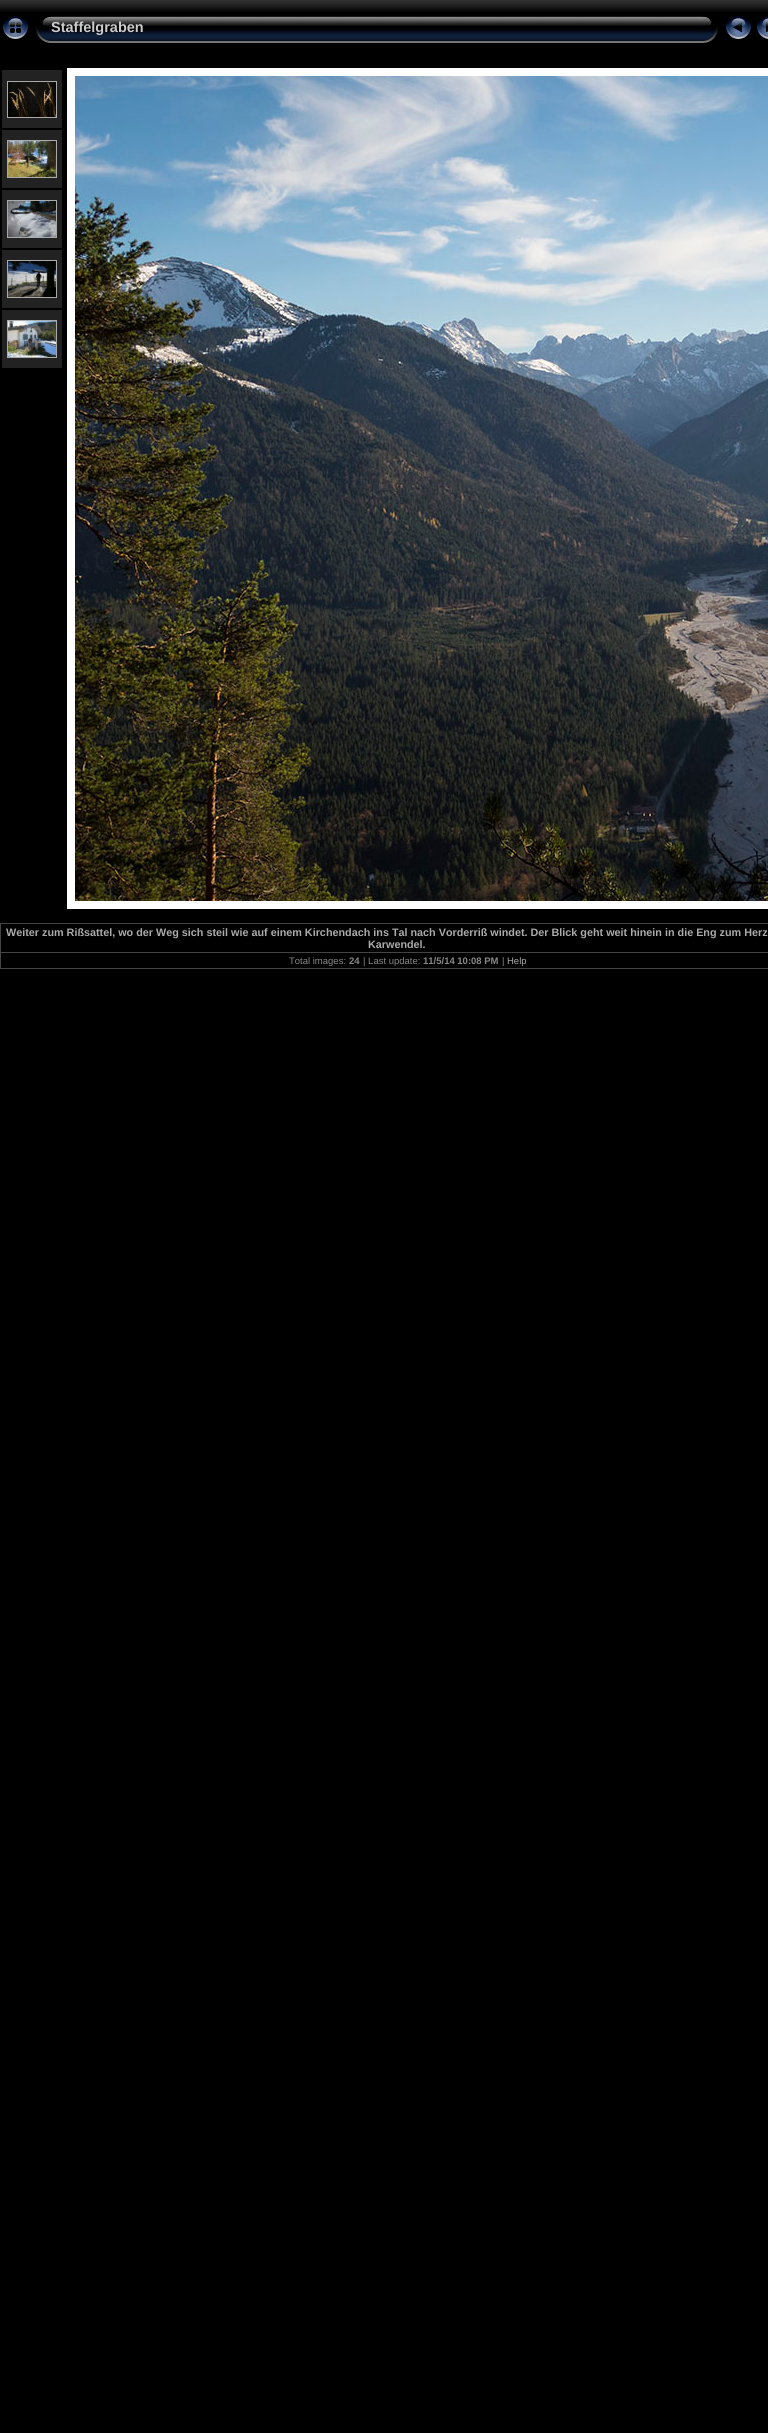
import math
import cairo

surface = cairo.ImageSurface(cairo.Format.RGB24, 768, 2433)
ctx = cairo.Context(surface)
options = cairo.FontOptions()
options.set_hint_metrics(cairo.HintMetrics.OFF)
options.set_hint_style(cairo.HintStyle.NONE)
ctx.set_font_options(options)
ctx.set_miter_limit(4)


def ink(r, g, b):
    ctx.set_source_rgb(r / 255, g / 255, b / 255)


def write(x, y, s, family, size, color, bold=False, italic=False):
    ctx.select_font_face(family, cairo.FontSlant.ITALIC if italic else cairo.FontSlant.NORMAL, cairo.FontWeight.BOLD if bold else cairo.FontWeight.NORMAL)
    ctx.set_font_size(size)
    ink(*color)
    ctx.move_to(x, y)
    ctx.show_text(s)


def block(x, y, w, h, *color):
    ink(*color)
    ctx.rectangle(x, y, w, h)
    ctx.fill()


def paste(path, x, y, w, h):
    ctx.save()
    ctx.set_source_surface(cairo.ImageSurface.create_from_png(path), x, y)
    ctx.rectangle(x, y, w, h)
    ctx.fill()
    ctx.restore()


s1 = dict(family="Liberation Sans", size=14.5, color=(204, 204, 204), bold=True)
s2 = dict(family="Liberation Sans", size=10.8, color=(170, 170, 170), bold=True)
s3 = dict(family="Liberation Sans", size=9.5, color=(136, 136, 136))
s4 = dict(family="Liberation Sans", size=9.5, color=(136, 136, 136), bold=True)
s5 = dict(family="Liberation Sans", size=9.5, color=(170, 170, 170))

ink(0, 0, 0)
ctx.paint()
paste("pic1.png", 0, 0, 768, 12)
paste("pic2.png", 3, 16, 25, 23)
paste("pic3.png", 36, 16, 15, 27)
paste("pic4.png", 51, 16, 652, 27)
write(51, 32, "Staffelgraben", **s1)
paste("pic5.png", 703, 16, 15, 27)
paste("pic6.png", 726, 16, 25, 23)
paste("pic7.png", 757, 16, 11, 23)
block(2, 70, 60, 58, 34, 34, 34)
ctx.rectangle(7.5, 81.5, 49, 36)
ink(170, 170, 170)
ctx.set_line_width(1)
ctx.stroke()
paste("pic8.png", 8, 82, 48, 35)
block(2, 130, 60, 58, 34, 34, 34)
ctx.rectangle(7.5, 140.5, 49, 37)
ink(170, 170, 170)
ctx.stroke()
paste("pic9.png", 8, 141, 48, 36)
block(2, 190, 60, 58, 34, 34, 34)
ctx.rectangle(7.5, 200.5, 49, 37)
ink(170, 170, 170)
ctx.stroke()
paste("pic10.png", 8, 201, 48, 36)
block(2, 250, 60, 58, 34, 34, 34)
ctx.rectangle(7.5, 260.5, 49, 37)
ink(170, 170, 170)
ctx.stroke()
paste("pic11.png", 8, 261, 48, 36)
block(2, 310, 60, 58, 34, 34, 34)
ctx.rectangle(7.5, 320.5, 49, 37)
ink(170, 170, 170)
ctx.stroke()
paste("pic12.png", 8, 321, 48, 36)
ctx.rectangle(71, 72, 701, 833)
ink(255, 255, 255)
ctx.set_line_width(8)
ctx.stroke()
paste("pic13.png", 75, 76, 693, 825)
block(0, 923, 768, 1, 68, 68, 68)
block(0, 968, 768, 1, 68, 68, 68)
block(0, 923, 1, 46, 68, 68, 68)
write(6, 936, "Weiter zum Rißsattel, wo der Weg sich steil wie auf einem Kirchendach ins Tal nach Vorderriß windet. Der Blick geht weit hinein in die Eng zum Herz", **s2)
write(368, 948, "Karwendel.", **s2)
block(0, 952, 768, 1, 68, 68, 68)
write(289, 964, "Total images:", **s3)
write(349, 964, "24", **s4)
write(363, 964, "| Last update:", **s3)
write(423, 964, "11/5/14 10:08 PM", **s4)
write(502, 964, "|", **s3)
write(507, 964, "Help", **s5)
surface.write_to_png("screenshot.png")
